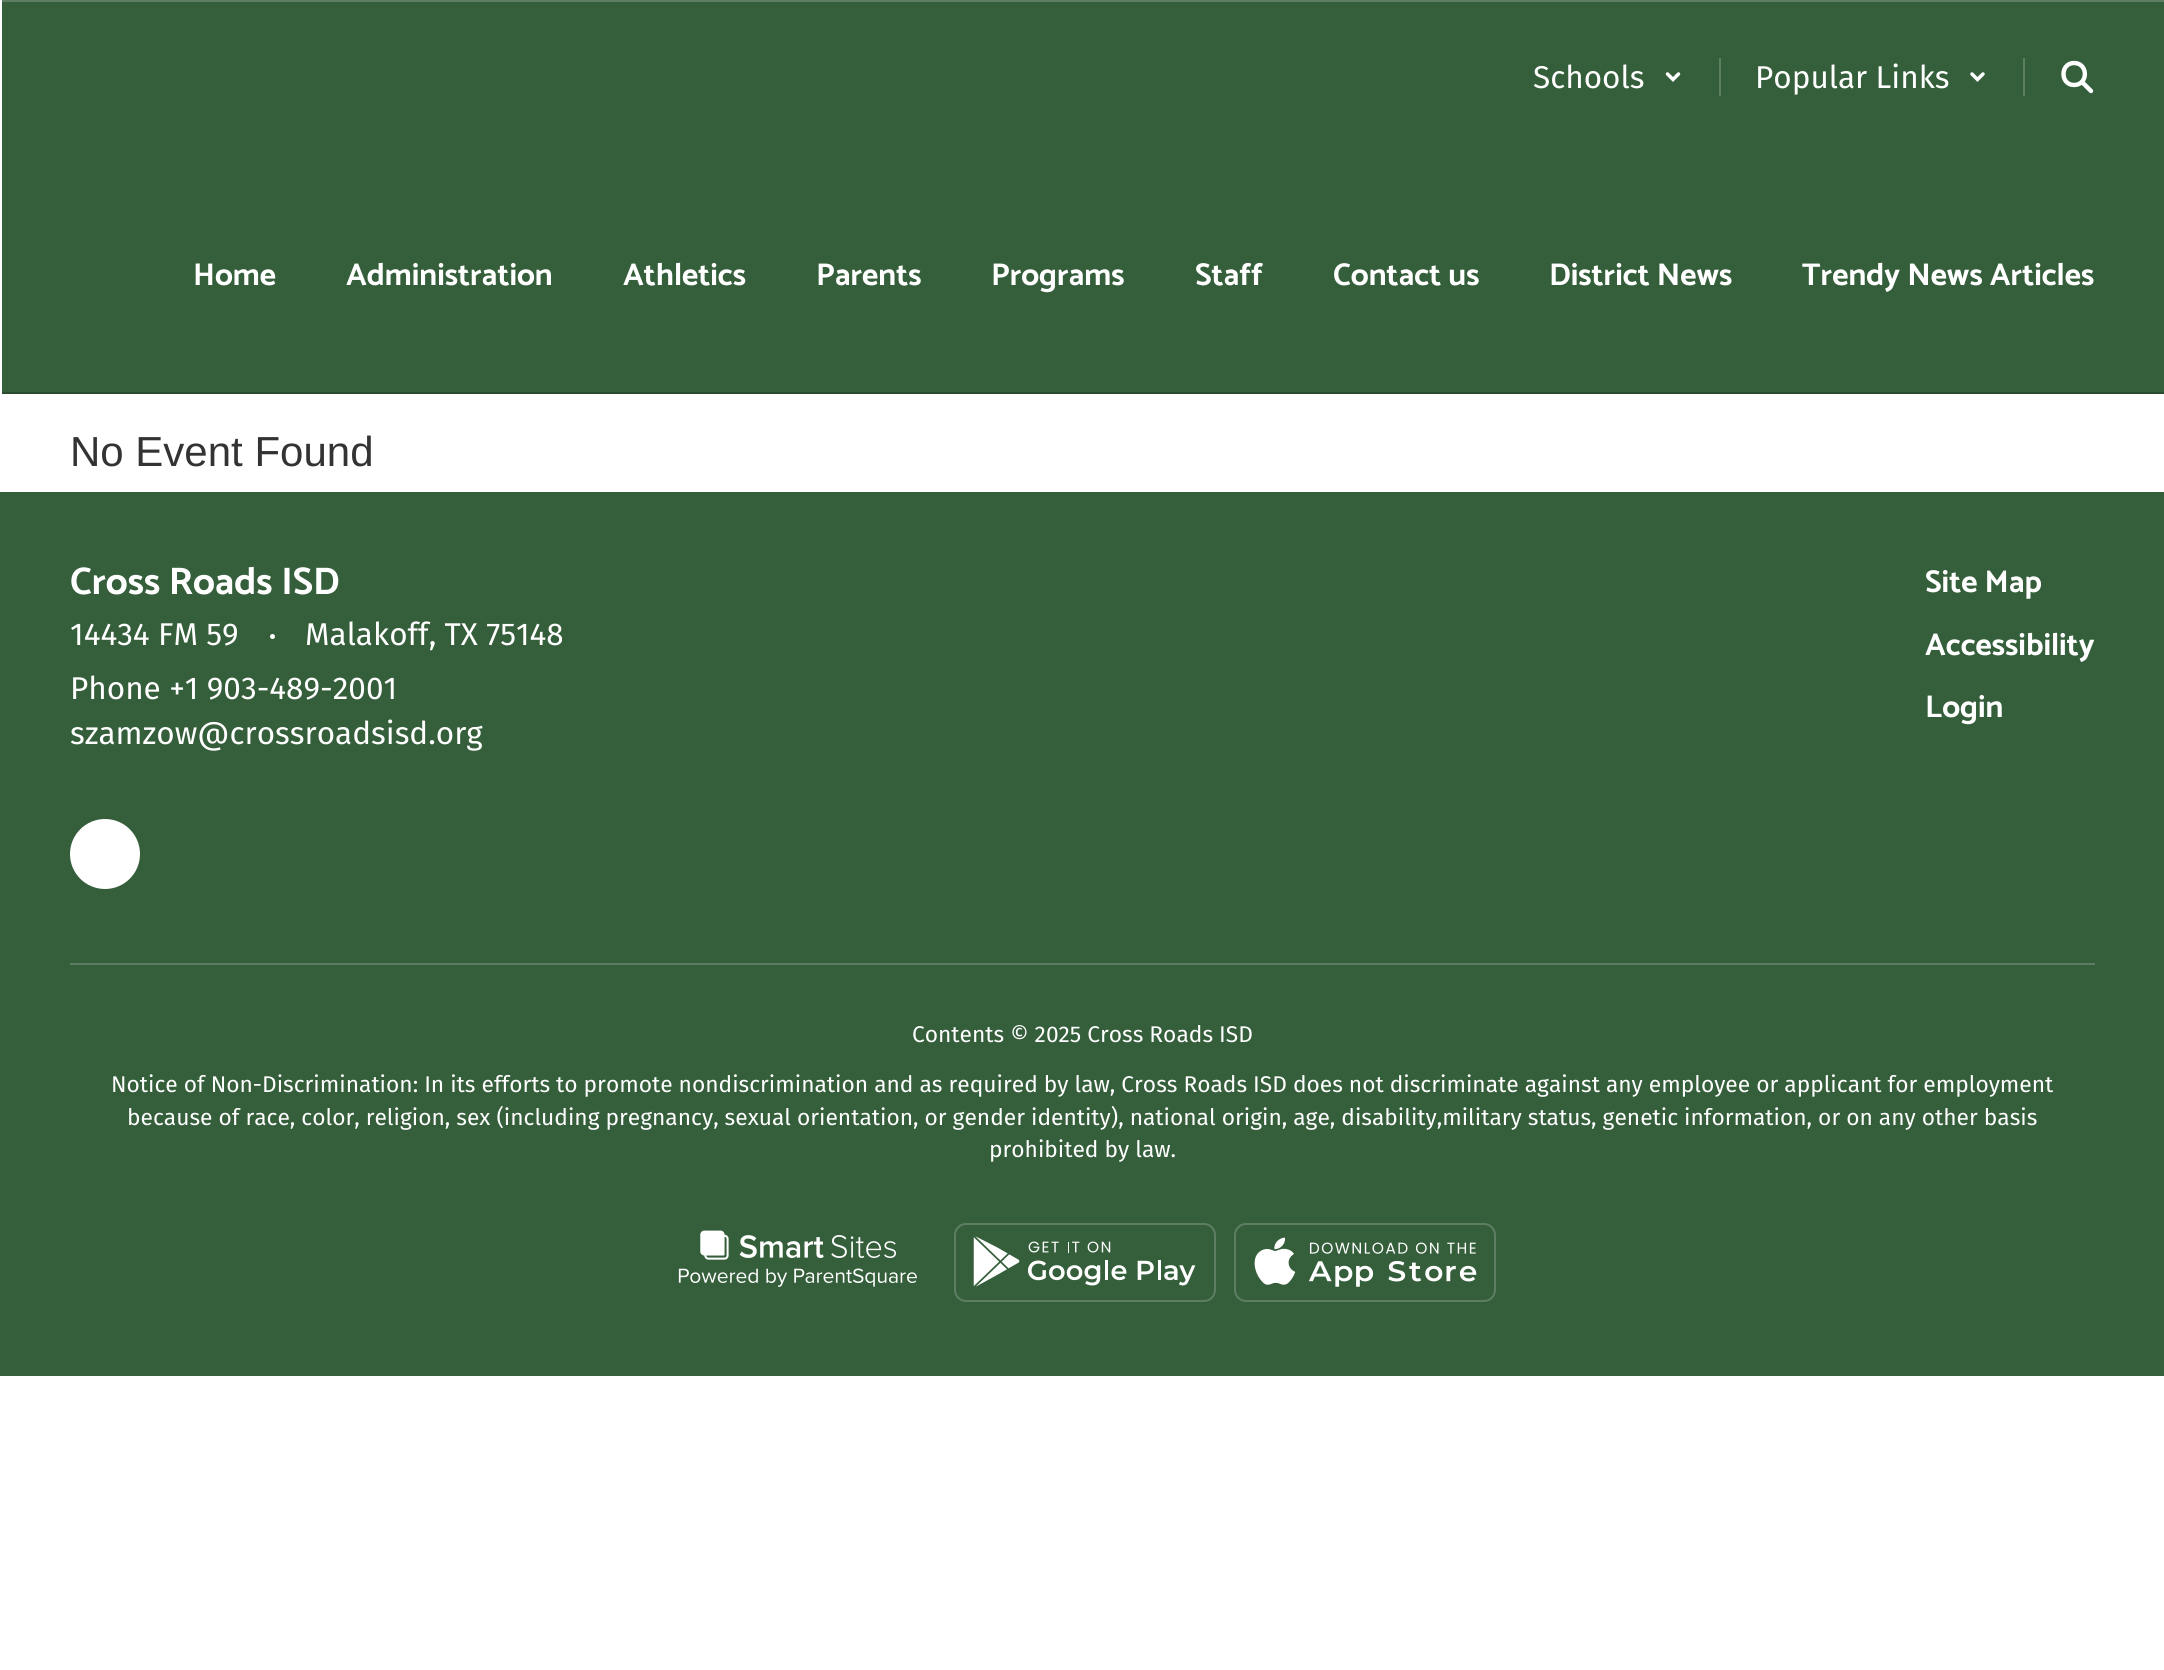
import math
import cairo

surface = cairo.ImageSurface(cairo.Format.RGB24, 2164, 1670)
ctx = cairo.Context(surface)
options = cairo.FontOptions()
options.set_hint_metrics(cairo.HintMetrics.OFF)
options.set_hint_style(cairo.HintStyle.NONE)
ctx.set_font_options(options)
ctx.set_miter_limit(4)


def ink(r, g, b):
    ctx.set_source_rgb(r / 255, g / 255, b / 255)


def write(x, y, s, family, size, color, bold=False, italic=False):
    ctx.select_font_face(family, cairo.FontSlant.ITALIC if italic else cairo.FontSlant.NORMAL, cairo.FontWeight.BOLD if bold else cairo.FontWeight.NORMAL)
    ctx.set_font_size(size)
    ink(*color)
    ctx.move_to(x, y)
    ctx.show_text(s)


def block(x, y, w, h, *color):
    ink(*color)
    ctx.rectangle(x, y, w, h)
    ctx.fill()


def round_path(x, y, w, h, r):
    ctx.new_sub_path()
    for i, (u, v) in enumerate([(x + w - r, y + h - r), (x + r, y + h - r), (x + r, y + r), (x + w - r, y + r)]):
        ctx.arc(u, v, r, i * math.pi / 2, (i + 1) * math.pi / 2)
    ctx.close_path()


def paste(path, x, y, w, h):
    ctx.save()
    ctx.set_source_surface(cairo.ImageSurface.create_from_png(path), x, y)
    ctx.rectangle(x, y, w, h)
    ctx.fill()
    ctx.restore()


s1 = dict(family="Fira Sans", size=31.5, color=(255, 255, 255))
s2 = dict(family="Catamaran Thin", size=31.5, color=(255, 255, 255))
s3 = dict(family="Liberation Sans", size=42, color=(51, 51, 51))
s4 = dict(family="Catamaran Thin", size=38.5, color=(255, 255, 255))
s5 = dict(family="Fira Sans", size=22.75, color=(255, 255, 255))

ink(255, 255, 255)
ctx.paint()
block(2, 2, 2162, 390, 53, 94, 59)
block(2, 0, 2162, 2, 93, 126, 98)
block(1719, 58, 2, 38, 93, 126, 98)
write(1533, 88, "Schools", **s1)
ctx.new_path()
ctx.move_to(1667.5, 74)
ctx.line_to(1673, 79.5)
ctx.line_to(1678.5, 74)
ctx.set_line_width(3.5)
ctx.set_line_cap(cairo.LineCap.ROUND)
ctx.stroke()
block(2023, 58, 2, 38, 93, 126, 98)
write(1755, 88, "Popular Links", **s1)
ctx.new_path()
ctx.move_to(1972, 74)
ctx.line_to(1977.5, 79.5)
ctx.line_to(1983, 74)
ctx.stroke()
ctx.new_path()
ctx.move_to(2074, 85)
ctx.curve_to(2088.5, 85, 2088.5, 63, 2074, 63)
ctx.curve_to(2060, 63, 2060, 85, 2074, 85)
ctx.close_path()
ctx.set_line_width(4.4)
ctx.set_line_cap(cairo.LineCap.SQUARE)
ctx.set_line_join(cairo.LineJoin.ROUND)
ctx.stroke()
ctx.new_path()
ctx.move_to(2091, 91)
ctx.line_to(2082, 82)
ctx.set_line_cap(cairo.LineCap.ROUND)
ctx.stroke()
write(193, 285, "Home", **s2)
write(346, 285, "Administration", **s2)
write(623, 285, "Athletics", **s2)
write(816, 285, "Parents", **s2)
write(991, 285, "Programs", **s2)
write(1195, 285, "Staff", **s2)
write(1333, 285, "Contact us", **s2)
write(1549, 285, "District News", **s2)
write(1802, 285, "Trendy News Articles", **s2)
block(2, 392, 2162, 2, 42, 75, 47)
write(70, 466, "No Event Found", **s3)
block(0, 492, 2164, 884, 53, 94, 59)
write(70, 594, "Cross Roads ISD", **s4)
write(70, 645, "14434 FM 59", **s1)
ctx.new_path()
ctx.arc(272.5, 636.5, 2.5, 0, 2 * math.pi)
ctx.fill()
write(305, 645, "Malakoff, TX 75148", **s1)
write(70, 699, "Phone +1 903-489-2001", **s1)
write(70, 744, "szamzow@crossroadsisd.org", **s1)
ctx.new_path()
ctx.arc(105, 854, 35, 0, 2 * math.pi)
ctx.fill()
write(1925, 592, "Site Map", **s2)
write(1925, 655, "Accessibility", **s2)
write(1925, 717, "Login", **s2)
block(70, 963, 2025, 2, 93, 126, 98)
write(912, 1042, "Contents © 2025 Cross Roads ISD", **s5)
write(111, 1092, "Notice of Non-Discrimination: In its efforts to promote nondiscrimination and as required by law, Cross Roads ISD does not discriminate against any employee or applicant for employment", **s5)
write(127, 1125, "because of race, color, religion, sex (including pregnancy, sexual orientation, or gender identity), national origin, age, disability,military status, genetic information, or on any other basis", **s5)
write(989, 1157, "prohibited by law.", **s5)
paste("pic1.png", 678, 1230, 239, 57)
round_path(955, 1224, 260, 77, 11)
ink(93, 126, 98)
ctx.set_line_width(2)
ctx.set_line_cap(cairo.LineCap.BUTT)
ctx.set_line_join(cairo.LineJoin.MITER)
ctx.stroke()
paste("pic2.png", 973, 1236, 223, 51)
round_path(1235, 1224, 260, 77, 11)
ctx.stroke()
paste("pic3.png", 1254, 1237, 223, 50)
surface.write_to_png("screenshot.png")
